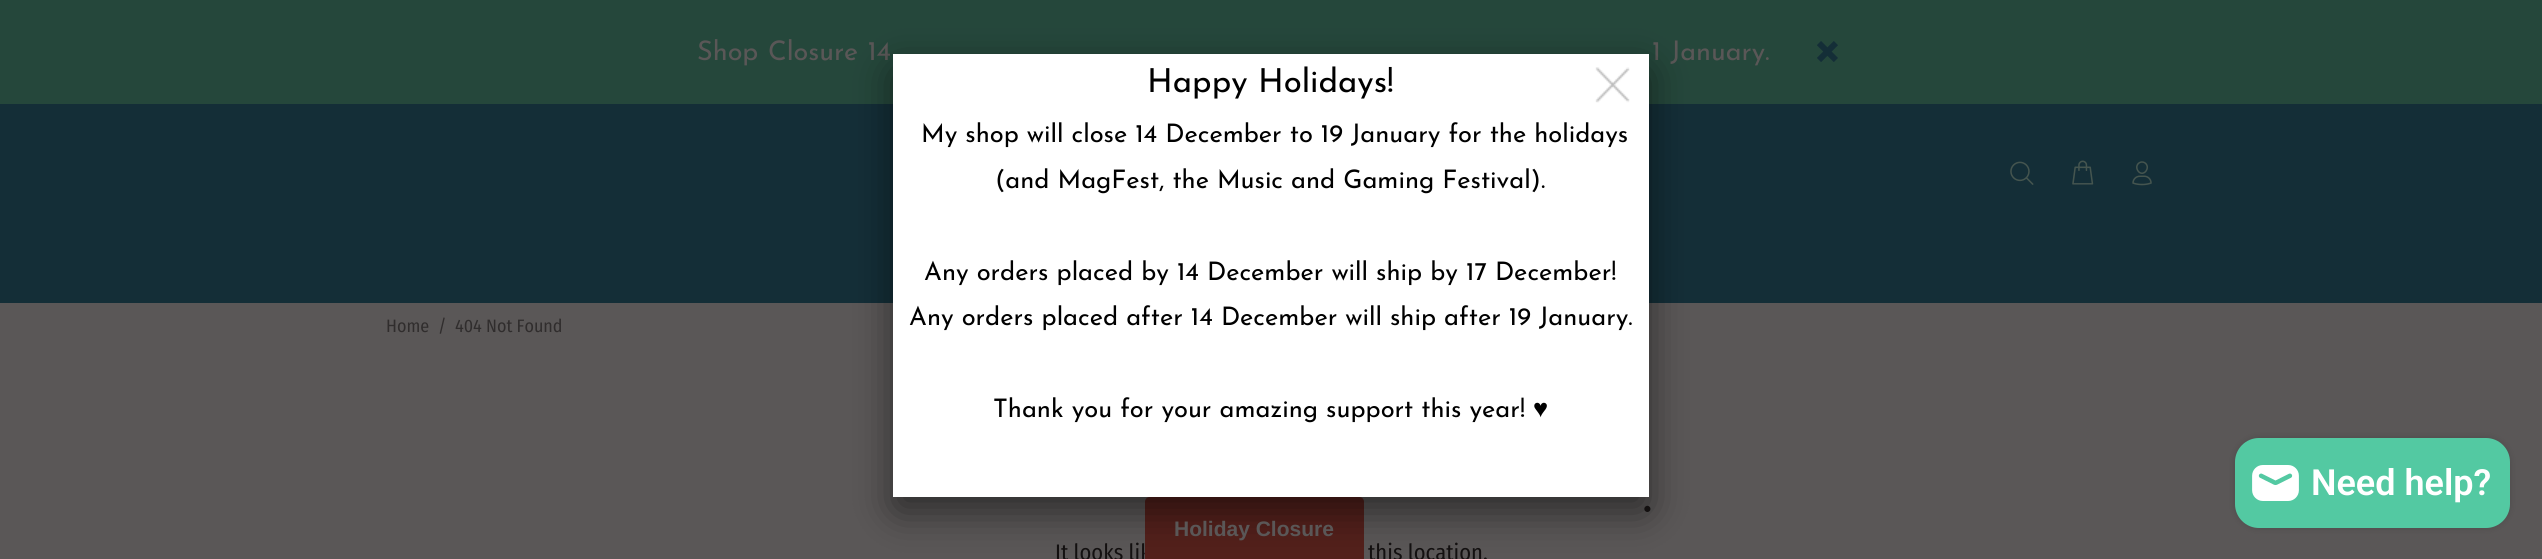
import math
import cairo

surface = cairo.ImageSurface(cairo.Format.RGB24, 2542, 559)
ctx = cairo.Context(surface)
options = cairo.FontOptions()
options.set_hint_metrics(cairo.HintMetrics.OFF)
options.set_hint_style(cairo.HintStyle.NONE)
ctx.set_font_options(options)
ctx.set_miter_limit(4)


def ink(r, g, b):
    ctx.set_source_rgb(r / 255, g / 255, b / 255)


def write(x, y, s, family, size, color, bold=False, italic=False):
    ctx.select_font_face(family, cairo.FontSlant.ITALIC if italic else cairo.FontSlant.NORMAL, cairo.FontWeight.BOLD if bold else cairo.FontWeight.NORMAL)
    ctx.set_font_size(size)
    ink(*color)
    ctx.move_to(x, y)
    ctx.show_text(s)


def write_spaced(x, y, s, letter, word):
    ctx.move_to(x, y)
    for ch in s:
        ctx.show_text(ch)
        ctx.rel_move_to(letter + word * (ch == ' '), 0)


def block(x, y, w, h, *color):
    ink(*color)
    ctx.rectangle(x, y, w, h)
    ctx.fill()


def round_path(x, y, w, h, r):
    ctx.new_sub_path()
    for i, (u, v) in enumerate([(x + w - r, y + h - r), (x + r, y + h - r), (x + r, y + r), (x + w - r, y + r)]):
        ctx.arc(u, v, r, i * math.pi / 2, (i + 1) * math.pi / 2)
    ctx.close_path()


def blur_box(x, y, w, h, r, blur, alpha):
    ctx.push_group_with_content(cairo.Content.ALPHA)
    ctx.set_operator(cairo.Operator.SOURCE)
    for i in range(15, -16, -2):
        e = blur * i / 6
        if min(w, h) + 2 * e > 0:
            ctx.set_source_rgba(0, 0, 0, alpha * math.erfc((i - 1) / 8.5) / 2)
            round_path(x - e, y - e, w + 2 * e, h + 2 * e, max(0, min(r + e + blur * .6, min(w, h) / 2 + e)))
            ctx.fill()
    ctx.mask(ctx.pop_group())


def paste(path, x, y, w, h):
    ctx.save()
    ctx.set_source_surface(cairo.ImageSurface.create_from_png(path), x, y)
    ctx.rectangle(x, y, w, h)
    ctx.fill()
    ctx.restore()


s1 = dict(family="Fira Sans Condensed", size=18, color=(48, 45, 45))
s2 = dict(family="Fira Sans Condensed", size=22.5, color=(19, 16, 16))
s3 = dict(family="Josefin Sans Thin", size=33, color=(0, 0, 0))
s4 = dict(family="Josefin Sans Thin", size=25.5, color=(0, 0, 0))
s5 = dict(family="Liberation Sans", size=25.5, color=(0, 0, 0))
s6 = dict(family="Roboto SemiBold", size=36, color=(255, 255, 255))
s7 = dict(family="Josefin Sans SemiBold", size=51, color=(19, 16, 16))
s8 = dict(family="Liberation Sans", size=21, color=(90, 87, 87), bold=True)

ink(90, 87, 87)
ctx.paint()
block(0, 104, 2542, 199, 20, 46, 55)
block(0, 0, 2542, 104, 37, 71, 59)
ctx.select_font_face("Josefin Sans Thin")
ctx.set_font_size(27)
ink(90, 87, 87)
write_spaced(697, 60, "Shop Closure 14", 0, 1)
write_spaced(1652, 60, "1 January.", 0, 1)
paste("pic1.png", 1817, 41, 21, 21)
paste("pic2.png", 2010, 161, 24, 24)
paste("pic3.png", 2072, 160, 22, 25)
paste("pic4.png", 2132, 161, 20, 25)
write(386, 332, "Home", **s1)
write(438, 332, "/", **s1)
write(455, 332, "404 Not Found", **s1)
write(1055, 560, "It looks lik", **s2)
ink(83, 32, 27)
ctx.new_path()
ctx.move_to(1150, 497)
ctx.line_to(1359, 497)
ctx.curve_to(1362, 497, 1364, 499, 1364, 502)
ctx.line_to(1364, 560)
ctx.line_to(1145, 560)
ctx.line_to(1145, 502)
ctx.curve_to(1145, 499, 1147, 497, 1150, 497)
ctx.close_path()
ctx.fill()
ink(0, 0, 0)
blur_box(893, 69, 756, 443, 6, 19, 0.5)
block(893, 54, 756, 443, 255, 255, 255)
write(1147, 92, "Happy Holidays!", **s3)
write(921, 142, "My shop will close 14 December to 19 January for the holidays", **s4)
write(995, 188, "(and MagFest, the Music and Gaming Festival).", **s4)
write(924, 280, "Any orders placed by 14 December will ship by 17 December!", **s4)
write(909, 325, "Any orders placed after 14 December will ship after 19 January.", **s4)
write(993, 417, "Thank you for your amazing support this year!", **s4)
write(1533, 417, "♥", **s5)
paste("pic5.png", 1595, 67, 35, 36)
ink(0, 0, 0)
blur_box(2235, 438, 275, 90, 24, 4, 0.15)
ink(83, 201, 162)
round_path(2235, 438, 275, 90, 24)
ctx.fill()
paste("pic6.png", 2252, 465, 47, 36)
write(2311, 495, "Need help?", **s6)
write(1643, 512, ".", **s7)
write(1368, 560, "this location.", **s2)
write(1174, 536, "Holiday Closure", **s8)
surface.write_to_png("screenshot.png")
